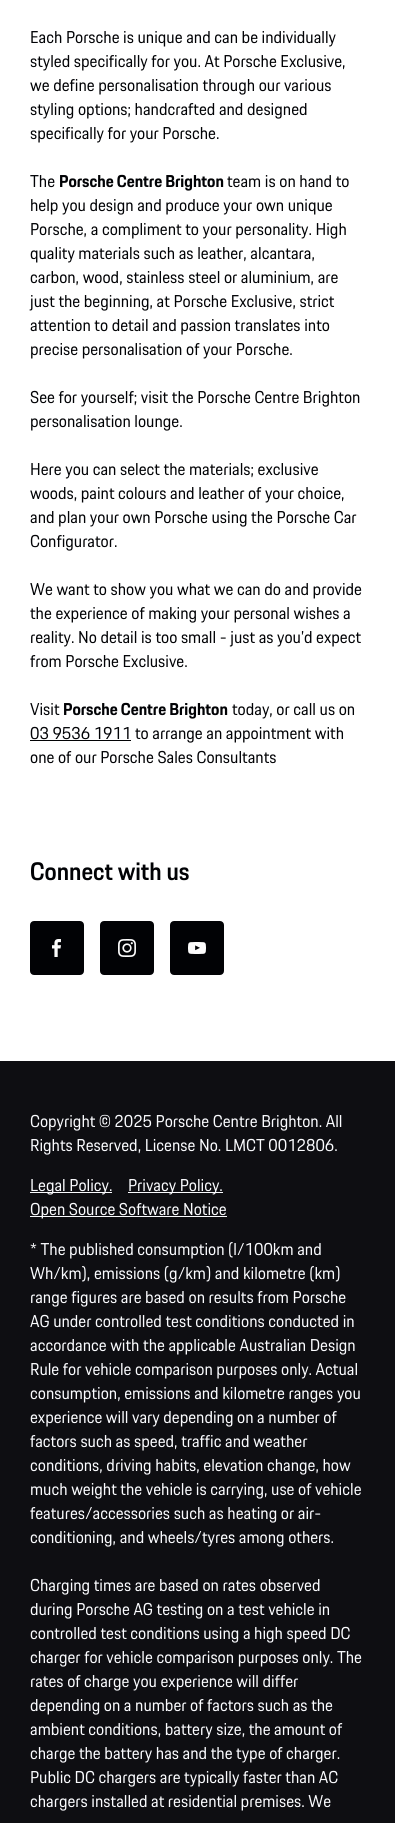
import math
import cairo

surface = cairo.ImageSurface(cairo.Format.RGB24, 395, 1823)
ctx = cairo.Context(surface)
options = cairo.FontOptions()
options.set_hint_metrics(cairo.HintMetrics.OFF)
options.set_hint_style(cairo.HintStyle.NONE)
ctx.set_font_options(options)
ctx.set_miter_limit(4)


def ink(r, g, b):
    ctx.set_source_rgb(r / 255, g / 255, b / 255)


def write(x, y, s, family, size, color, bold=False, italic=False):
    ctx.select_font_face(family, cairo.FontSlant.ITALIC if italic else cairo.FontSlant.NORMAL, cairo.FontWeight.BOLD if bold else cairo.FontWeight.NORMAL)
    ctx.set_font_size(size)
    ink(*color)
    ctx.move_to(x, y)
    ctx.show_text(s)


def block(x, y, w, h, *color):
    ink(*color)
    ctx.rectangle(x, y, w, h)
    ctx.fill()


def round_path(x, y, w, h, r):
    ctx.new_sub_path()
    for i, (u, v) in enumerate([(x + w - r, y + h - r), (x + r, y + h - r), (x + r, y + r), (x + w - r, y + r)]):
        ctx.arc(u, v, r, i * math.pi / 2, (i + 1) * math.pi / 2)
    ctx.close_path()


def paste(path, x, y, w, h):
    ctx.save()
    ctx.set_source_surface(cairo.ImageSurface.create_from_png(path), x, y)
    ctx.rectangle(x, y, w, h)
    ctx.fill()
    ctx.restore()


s1 = dict(family="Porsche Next", size=16, color=(1, 2, 5))
s2 = dict(family="Porsche Next", size=16, color=(1, 2, 5), bold=True)
s3 = dict(family="Porsche Next SemiBold", size=23.5, color=(1, 2, 5))
s4 = dict(family="Porsche Next", size=16, color=(251, 252, 255))

ink(255, 255, 255)
ctx.paint()
write(30, 43, "Each Porsche is unique and can be individually", **s1)
write(30, 67, "styled specifically for you. At Porsche Exclusive,", **s1)
write(30, 91, "we define personalisation through our various", **s1)
write(30, 115, "styling options; handcrafted and designed", **s1)
write(30, 139, "specifically for your Porsche.", **s1)
write(30, 187, "The", **s1)
write(59, 187, "Porsche Centre Brighton", **s2)
write(227, 187, "team is on hand to", **s1)
write(30, 211, "help you design and produce your own unique", **s1)
write(30, 235, "Porsche, a compliment to your personality. High", **s1)
write(30, 259, "quality materials such as leather, alcantara,", **s1)
write(30, 283, "carbon, wood, stainless steel or aluminium, are", **s1)
write(30, 307, "just the beginning, at Porsche Exclusive, strict", **s1)
write(30, 331, "attention to detail and passion translates into", **s1)
write(30, 355, "precise personalisation of your Porsche.", **s1)
write(30, 403, "See for yourself; visit the Porsche Centre Brighton", **s1)
write(30, 427, "personalisation lounge.", **s1)
write(30, 475, "Here you can select the materials; exclusive", **s1)
write(30, 499, "woods, paint colours and leather of your choice,", **s1)
write(30, 523, "and plan your own Porsche using the Porsche Car", **s1)
write(30, 547, "Configurator.", **s1)
write(30, 595, "We want to show you what we can do and provide", **s1)
write(30, 619, "the experience of making your personal wishes a", **s1)
write(30, 643, "reality. No detail is too small - just as you’d expect", **s1)
write(30, 667, "from Porsche Exclusive.", **s1)
write(30, 715, "Visit", **s1)
write(63, 715, "Porsche Centre Brighton", **s2)
write(232, 715, "today, or call us on", **s1)
block(30, 740, 101, 1, 1, 2, 5)
write(30, 739, "03 9536 1911 to arrange an appointment with", **s1)
write(30, 763, "one of our Porsche Sales Consultants", **s1)
write(30, 880, "Connect with us", **s3)
round_path(31, 922, 52, 52, 3)
ctx.fill_preserve()
ctx.stroke()
paste("pic1.png", 52, 939, 9, 18)
round_path(101, 922, 52, 52, 3)
ctx.fill_preserve()
ctx.stroke()
paste("pic2.png", 118, 939, 18, 18)
round_path(171, 922, 52, 52, 3)
ctx.fill_preserve()
ctx.stroke()
paste("pic3.png", 188, 942, 18, 12)
block(0, 1061, 395, 762, 14, 14, 18)
write(30, 1127, "Copyright © 2025 Porsche Centre Brighton. All", **s4)
write(30, 1151, "Rights Reserved, License No. LMCT 0012806.", **s4)
block(30, 1192, 82, 1, 251, 252, 255)
write(30, 1191, "Legal Policy.", **s4)
block(128, 1192, 95, 1, 251, 252, 255)
write(128, 1191, "Privacy Policy.", **s4)
block(30, 1216, 197, 1, 251, 252, 255)
write(30, 1215, "Open Source Software Notice", **s4)
write(30, 1255, "* The published consumption (l/100km and", **s4)
write(30, 1279, "Wh/km), emissions (g/km) and kilometre (km)", **s4)
write(30, 1303, "range figures are based on results from Porsche", **s4)
write(30, 1327, "AG under controlled test conditions conducted in", **s4)
write(30, 1351, "accordance with the applicable Australian Design", **s4)
write(30, 1375, "Rule for vehicle comparison purposes only. Actual", **s4)
write(30, 1399, "consumption, emissions and kilometre ranges you", **s4)
write(30, 1423, "experience will vary depending on a number of", **s4)
write(30, 1447, "factors such as speed, traffic and weather", **s4)
write(30, 1471, "conditions, driving habits, elevation change, how", **s4)
write(30, 1495, "much weight the vehicle is carrying, use of vehicle", **s4)
write(30, 1519, "features/accessories such as heating or air-", **s4)
write(30, 1543, "conditioning, and wheels/tyres among others.", **s4)
write(30, 1591, "Charging times are based on rates observed", **s4)
write(30, 1615, "during Porsche AG testing on a test vehicle in", **s4)
write(30, 1639, "controlled test conditions using a high speed DC", **s4)
write(30, 1663, "charger for vehicle comparison purposes only. The", **s4)
write(30, 1687, "rates of charge you experience will differ", **s4)
write(30, 1711, "depending on a number of factors such as the", **s4)
write(30, 1735, "ambient conditions, battery size, the amount of", **s4)
write(30, 1759, "charge the battery has and the type of charger.", **s4)
write(30, 1783, "Public DC chargers are typically faster than AC", **s4)
write(30, 1807, "chargers installed at residential premises. We", **s4)
surface.write_to_png("screenshot.png")
